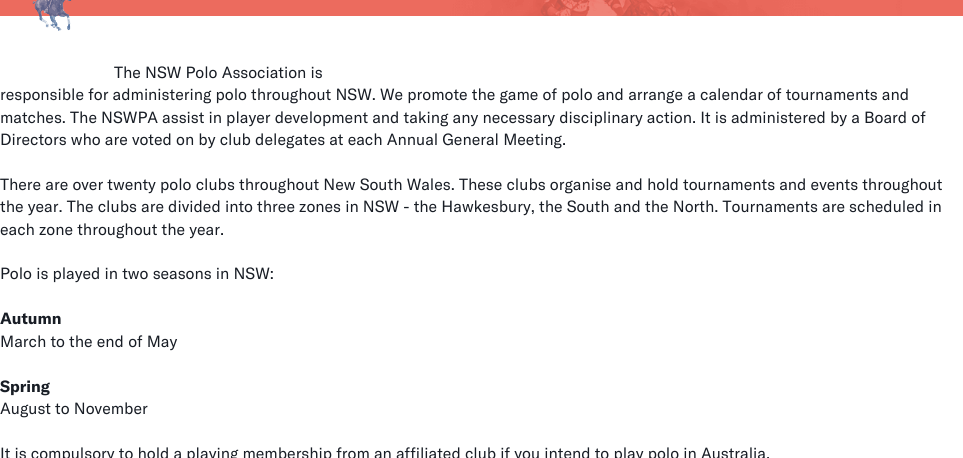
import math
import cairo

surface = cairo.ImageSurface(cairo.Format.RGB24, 963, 458)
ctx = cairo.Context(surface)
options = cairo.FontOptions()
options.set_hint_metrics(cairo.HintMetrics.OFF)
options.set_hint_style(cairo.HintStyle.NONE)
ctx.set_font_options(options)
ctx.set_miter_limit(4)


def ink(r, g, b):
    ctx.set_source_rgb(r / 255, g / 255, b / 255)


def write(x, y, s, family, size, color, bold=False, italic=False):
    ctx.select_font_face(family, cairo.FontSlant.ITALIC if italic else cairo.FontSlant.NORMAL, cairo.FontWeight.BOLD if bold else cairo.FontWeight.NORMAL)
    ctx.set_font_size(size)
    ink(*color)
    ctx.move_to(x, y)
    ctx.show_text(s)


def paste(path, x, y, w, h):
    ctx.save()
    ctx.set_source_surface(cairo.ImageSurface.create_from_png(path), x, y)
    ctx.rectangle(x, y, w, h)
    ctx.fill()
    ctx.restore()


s1 = dict(family="GT America", size=16, color=(24, 29, 37))
s2 = dict(family="GT America", size=16, color=(24, 29, 37), bold=True)

ink(255, 255, 255)
ctx.paint()
paste("pic2.png", 0, 0, 963, 16)
paste("pic1.png", 32, 0, 40, 31)
write(114, 78, "The NSW Polo Association is", **s1)
write(0, 100, "responsible for administering polo throughout NSW. We promote the game of polo and arrange a calendar of tournaments and", **s1)
write(0, 123, "matches. The NSWPA assist in player development and taking any necessary disciplinary action. It is administered by a Board of", **s1)
write(0, 145, "Directors who are voted on by club delegates at each Annual General Meeting.", **s1)
write(0, 190, "There are over twenty polo clubs throughout New South Wales. These clubs organise and hold tournaments and events throughout", **s1)
write(0, 212, "the year. The clubs are divided into three zones in NSW - the Hawkesbury, the South and the North. Tournaments are scheduled in", **s1)
write(0, 235, "each zone throughout the year.", **s1)
write(0, 279, "Polo is played in two seasons in NSW:", **s1)
write(0, 324, "Autumn", **s2)
write(0, 347, "March to the end of May", **s1)
write(0, 392, "Spring", **s2)
write(0, 414, "August to November", **s1)
write(0, 459, "It is compulsory to hold a playing membership from an affiliated club if you intend to play polo in Australia.", **s1)
surface.write_to_png("screenshot.png")
